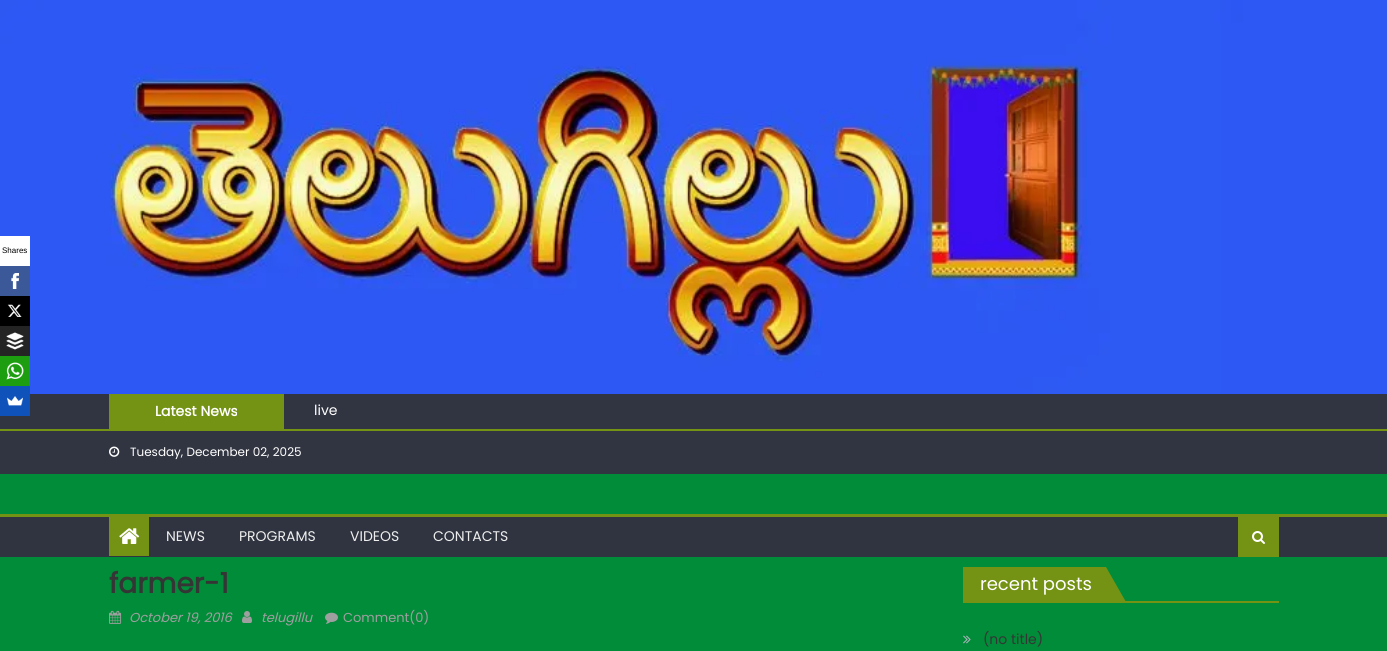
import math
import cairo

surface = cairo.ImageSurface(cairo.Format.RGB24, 1387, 651)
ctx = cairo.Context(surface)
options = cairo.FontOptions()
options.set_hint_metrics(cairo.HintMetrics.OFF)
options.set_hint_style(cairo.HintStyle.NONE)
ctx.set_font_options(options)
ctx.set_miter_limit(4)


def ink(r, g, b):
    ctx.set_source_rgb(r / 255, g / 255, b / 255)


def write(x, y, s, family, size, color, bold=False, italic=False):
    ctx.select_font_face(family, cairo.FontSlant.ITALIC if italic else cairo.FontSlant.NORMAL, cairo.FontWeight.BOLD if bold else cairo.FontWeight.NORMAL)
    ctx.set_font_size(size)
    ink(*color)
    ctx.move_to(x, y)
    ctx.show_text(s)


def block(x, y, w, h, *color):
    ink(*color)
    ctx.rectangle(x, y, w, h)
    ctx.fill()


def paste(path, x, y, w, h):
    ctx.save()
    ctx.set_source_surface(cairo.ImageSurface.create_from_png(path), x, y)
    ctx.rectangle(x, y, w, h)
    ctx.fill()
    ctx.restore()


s1 = dict(family="Liberation Sans", size=8, color=(0, 0, 0))
s2 = dict(family="Poppins", size=14, color=(255, 255, 255), bold=True)
s3 = dict(family="Poppins", size=14, color=(255, 255, 255))
s4 = dict(family="Poppins", size=12, color=(255, 255, 255))
s5 = dict(family="Poppins", size=14, color=(238, 238, 238))
s6 = dict(family="Poppins", size=28, color=(53, 53, 53), bold=True)
s7 = dict(family="Poppins", size=13, color=(159, 159, 159), italic=True)
s8 = dict(family="Poppins", size=13, color=(159, 159, 159))
s9 = dict(family="Poppins", size=18, color=(255, 255, 255))
s10 = dict(family="Poppins", size=14, color=(53, 53, 53))

ink(0, 140, 56)
ctx.paint()
paste("pic6.png", 0, 0, 1387, 394)
block(0, 236, 30, 30, 255, 255, 255)
write(2, 253, "Shares", **s1)
block(0, 266, 30, 30, 59, 89, 152)
paste("pic1.png", 11, 273, 8, 16)
block(0, 296, 30, 30, 0, 0, 0)
paste("pic2.png", 7, 304, 15, 13)
block(0, 326, 30, 30, 36, 36, 36)
paste("pic3.png", 6, 332, 18, 18)
block(0, 356, 30, 30, 29, 158, 17)
paste("pic4.png", 6, 362, 18, 18)
block(0, 394, 1387, 35, 49, 53, 65)
block(0, 386, 30, 30, 15, 82, 186)
paste("pic5.png", 7, 396, 16, 10)
block(109, 394, 175, 35, 116, 147, 20)
write(155, 416, "Latest News", **s2)
write(314, 415, "live", **s3)
block(0, 431, 1387, 43, 49, 53, 65)
block(0, 429, 1387, 2, 116, 147, 20)
paste("pic7.png", 109, 446, 11, 11)
write(130, 456, "Tuesday, December 02, 2025", **s4)
block(0, 517, 1387, 40, 48, 52, 64)
block(0, 514, 1387, 3, 116, 147, 20)
block(109, 517, 40, 39, 116, 147, 20)
paste("pic8.png", 119, 528, 21, 16)
write(166, 541, "NEWS", **s5)
write(239, 541, "PROGRAMS", **s5)
write(350, 541, "VIDEOS", **s5)
write(433, 541, "CONTACTS", **s5)
block(1238, 517, 41, 40, 116, 147, 20)
paste("pic9.png", 1252, 531, 13, 13)
write(109, 593, "farmer-1", **s6)
paste("pic10.png", 109, 610, 13, 14)
write(129, 622, "October 19, 2016", **s7)
paste("pic11.png", 242, 611, 10, 12)
write(261, 622, "telugillu", **s7)
paste("pic12.png", 325, 612, 13, 12)
write(343, 622, "Comment(0)", **s8)
block(963, 601, 316, 2, 116, 147, 20)
block(963, 567, 2, 36, 116, 147, 20)
block(965, 567, 141, 34, 116, 147, 20)
write(980, 590, "recent posts", **s9)
ink(116, 147, 20)
ctx.new_path()
ctx.move_to(1126, 602)
ctx.line_to(1106, 602)
ctx.line_to(1106, 567)
ctx.close_path()
ctx.fill()
paste("pic13.png", 963, 635, 8, 9)
write(983, 644, "(no title)", **s10)
surface.write_to_png("screenshot.png")
